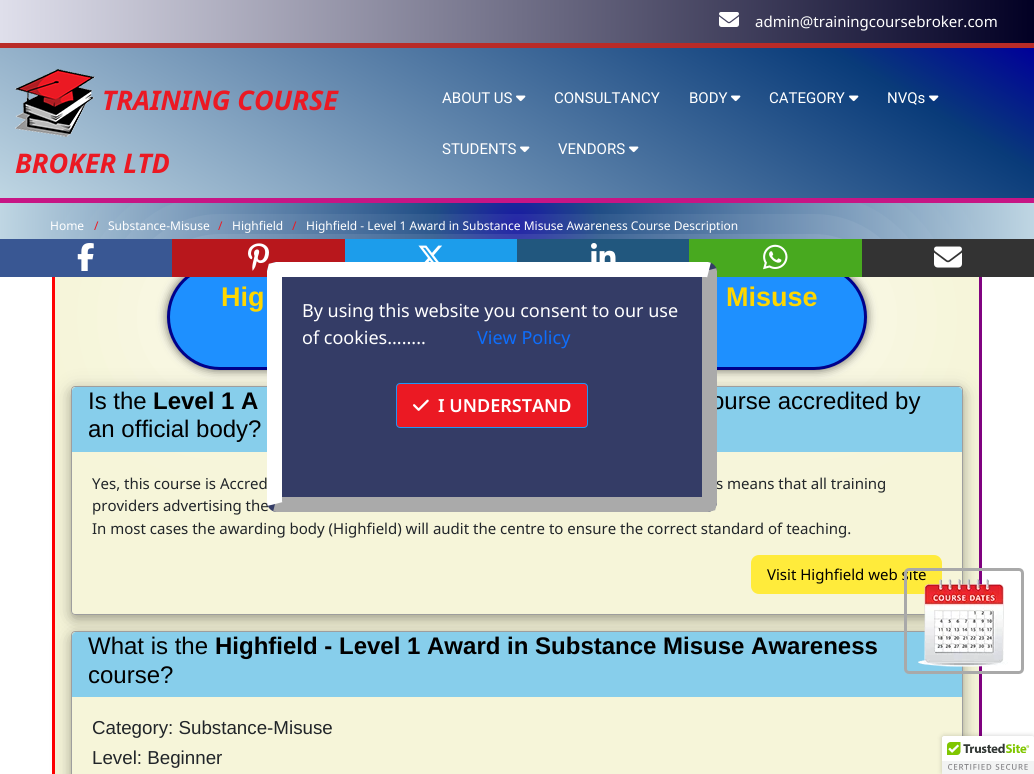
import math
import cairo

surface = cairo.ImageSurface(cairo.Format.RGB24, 1034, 774)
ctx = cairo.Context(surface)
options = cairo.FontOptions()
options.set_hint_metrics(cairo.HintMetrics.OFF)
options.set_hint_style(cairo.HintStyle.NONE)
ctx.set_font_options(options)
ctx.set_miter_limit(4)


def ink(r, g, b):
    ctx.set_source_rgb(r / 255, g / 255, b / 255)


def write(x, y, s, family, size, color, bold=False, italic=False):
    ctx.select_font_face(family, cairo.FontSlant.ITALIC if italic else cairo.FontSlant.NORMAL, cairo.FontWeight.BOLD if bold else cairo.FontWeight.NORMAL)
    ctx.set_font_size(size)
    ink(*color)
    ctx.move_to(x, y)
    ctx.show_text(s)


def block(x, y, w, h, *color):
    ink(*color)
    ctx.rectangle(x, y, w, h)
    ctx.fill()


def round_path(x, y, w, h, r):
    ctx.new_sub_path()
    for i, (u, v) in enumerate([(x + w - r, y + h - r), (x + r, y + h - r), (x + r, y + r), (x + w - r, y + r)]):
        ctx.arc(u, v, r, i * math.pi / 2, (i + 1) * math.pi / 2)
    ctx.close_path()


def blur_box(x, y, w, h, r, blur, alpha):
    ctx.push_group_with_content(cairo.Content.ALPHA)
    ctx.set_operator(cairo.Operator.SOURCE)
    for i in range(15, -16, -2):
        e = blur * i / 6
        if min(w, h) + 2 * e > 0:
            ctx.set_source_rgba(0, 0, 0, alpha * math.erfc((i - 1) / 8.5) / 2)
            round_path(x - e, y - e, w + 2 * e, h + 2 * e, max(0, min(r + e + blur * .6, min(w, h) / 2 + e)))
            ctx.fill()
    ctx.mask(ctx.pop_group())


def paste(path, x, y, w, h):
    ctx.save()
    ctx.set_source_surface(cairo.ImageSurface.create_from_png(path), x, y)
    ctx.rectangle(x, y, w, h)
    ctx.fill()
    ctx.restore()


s1 = dict(family="Noto Sans", size=15, color=(255, 255, 255))
s2 = dict(family="Noto Sans", size=27, color=(235, 25, 35), bold=True, italic=True)
s3 = dict(family="Roboto", size=15, color=(255, 255, 255))
s4 = dict(family="Noto Sans", size=12, color=(255, 255, 255))
s5 = dict(family="Noto Sans", size=12, color=(235, 25, 35))
s6 = dict(family="Liberation Sans", size=27, color=(255, 215, 0), bold=True)
s7 = dict(family="Liberation Sans", size=24, color=(0, 0, 0))
s8 = dict(family="Liberation Sans", size=24, color=(0, 0, 0), bold=True)
s9 = dict(family="Noto Sans", size=15, color=(33, 37, 41))
s10 = dict(family="Noto Sans", size=15, color=(0, 0, 0))
s11 = dict(family="Liberation Sans", size=18.75, color=(33, 37, 41))
s12 = dict(family="Noto Sans", size=18, color=(255, 255, 255))
s13 = dict(family="Noto Sans", size=18, color=(13, 110, 253))
s14 = dict(family="Noto Sans SemiBold", size=18, color=(255, 255, 255))

ink(255, 255, 255)
ctx.paint()
gradient = cairo.LinearGradient(1034, 21, 0, 22)
gradient.add_color_stop_rgba(0, 0.008, 0, 0.141, 1)
gradient.add_color_stop_rgba(1, 0.875, 0.875, 0.922, 1)
gradient.add_color_stop_rgba(1, 0, 0.831, 1, 1)
ctx.set_source(gradient)
ctx.rectangle(0, 0, 1034, 43)
ctx.fill()
paste("pic1.png", 719, 12, 20, 15)
write(755, 27, "admin@trainingcoursebroker.com", **s1)
gradient = cairo.RadialGradient(517, 225, 0, 517, 225, 517)
gradient.add_color_stop_rgba(0, 0, 0, 0.6, 1)
gradient.add_color_stop_rgba(0.16, 0.035, 0.231, 0.475, 1)
gradient.add_color_stop_rgba(1, 0.749, 0.839, 0.89, 1)
ctx.set_source(gradient)
ctx.rectangle(0, 203, 1034, 36)
ctx.fill()
gradient = cairo.LinearGradient(52, 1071, 982, 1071)
gradient.add_color_stop_rgba(0, 1, 0, 0, 1)
gradient.add_color_stop_rgba(1, 0.502, 0, 0.502, 1)
ctx.set_source(gradient)
ctx.rectangle(52, 277, 930, 497)
ctx.fill()
block(55, 277, 924, 497, 246, 245, 217)
ink(255, 255, 255)
blur_box(167, 264, 700, 106, 53, 60, 0.6)
gradient = cairo.LinearGradient(687, -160, 347, 406)
gradient.add_color_stop_rgba(0, 0, 0, 0.6, 1)
gradient.add_color_stop_rgba(0.16, 0.035, 0.231, 0.475, 1)
gradient.add_color_stop_rgba(1, 0.749, 0.839, 0.89, 1)
ctx.set_source(gradient)
ctx.rectangle(0, 48, 1034, 150)
ctx.fill()
block(0, 43, 1034, 5, 185, 43, 39)
block(0, 198, 1034, 5, 199, 21, 133)
paste("pic2.png", 15, 69, 80, 68)
write(102, 110, "TRAINING COURSE", **s2)
write(15, 173, "BROKER LTD", **s2)
write(442, 103, "ABOUT US", **s3)
paste("pic3.png", 516, 95, 10, 7)
write(554, 103, "CONSULTANCY", **s3)
write(689, 103, "BODY", **s3)
paste("pic4.png", 731, 95, 10, 7)
write(769, 103, "CATEGORY", **s3)
paste("pic5.png", 849, 95, 10, 7)
write(887, 103, "NVQs", **s3)
paste("pic6.png", 929, 95, 10, 7)
write(442, 154, "STUDENTS", **s3)
paste("pic7.png", 520, 146, 10, 7)
write(558, 154, "VENDORS", **s3)
paste("pic8.png", 629, 146, 10, 7)
write(50, 230, "Home", **s4)
write(94, 230, "/", **s5)
write(108, 230, "Substance-Misuse", **s4)
write(218, 230, "/", **s5)
write(232, 230, "Highfield", **s4)
write(292, 230, "/", **s5)
write(306, 230, "Highfield - Level 1 Award in Substance Misuse Awareness Course Description", **s4)
ink(0, 0, 0)
blur_box(167, 264, 700, 106, 53, 5, 0.6)
ink(30, 144, 255)
round_path(168.5, 265.5, 697, 103, 51.5)
ctx.fill_preserve()
ink(0, 0, 139)
ctx.set_line_width(3)
ctx.stroke()
block(0, 239, 172, 38, 57, 87, 147)
paste("pic9.png", 77, 243, 17, 28)
block(172, 239, 173, 38, 184, 23, 28)
paste("pic10.png", 248, 243, 21, 28)
block(345, 239, 172, 23, 28, 157, 235)
paste("pic11.png", 418, 245, 24, 17)
block(517, 239, 172, 23, 33, 87, 126)
paste("pic12.png", 591, 243, 25, 19)
block(689, 239, 173, 38, 72, 169, 31)
paste("pic13.png", 763, 244, 25, 26)
block(862, 239, 172, 38, 51, 51, 51)
paste("pic14.png", 934, 246, 28, 22)
write(221, 306, "Hig", **s6)
write(726, 306, "Misuse", **s6)
ctx.save()
ctx.set_fill_rule(cairo.FillRule.EVEN_ODD)
ctx.new_path()
ctx.move_to(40, 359)
ctx.line_to(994, 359)
ctx.line_to(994, 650)
ctx.line_to(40, 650)
ctx.close_path()
ctx.move_to(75, 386)
ctx.line_to(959, 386)
ctx.curve_to(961, 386, 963, 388, 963, 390)
ctx.line_to(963, 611)
ctx.curve_to(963, 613, 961, 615, 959, 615)
ctx.line_to(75, 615)
ctx.curve_to(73, 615, 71, 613, 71, 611)
ctx.line_to(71, 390)
ctx.curve_to(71, 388, 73, 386, 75, 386)
ctx.close_path()
ctx.clip()
ink(0, 0, 0)
blur_box(71, 390, 892, 229, 4, 10, 0.19)
ctx.restore()
ctx.save()
ctx.set_fill_rule(cairo.FillRule.EVEN_ODD)
ctx.new_path()
ctx.move_to(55, 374)
ctx.line_to(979, 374)
ctx.line_to(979, 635)
ctx.line_to(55, 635)
ctx.close_path()
ctx.move_to(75, 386)
ctx.line_to(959, 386)
ctx.curve_to(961, 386, 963, 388, 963, 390)
ctx.line_to(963, 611)
ctx.curve_to(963, 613, 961, 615, 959, 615)
ctx.line_to(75, 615)
ctx.curve_to(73, 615, 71, 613, 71, 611)
ctx.line_to(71, 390)
ctx.curve_to(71, 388, 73, 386, 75, 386)
ctx.close_path()
ctx.clip()
ink(0, 0, 0)
blur_box(71, 390, 892, 229, 4, 5, 0.2)
ctx.restore()
round_path(71.5, 386.5, 891, 228, 3.5)
ink(158, 158, 158)
ctx.set_line_width(1)
ctx.stroke()
ink(135, 206, 235)
ctx.new_path()
ctx.move_to(76, 387)
ctx.line_to(958, 387)
ctx.curve_to(960, 387, 962, 389, 962, 391)
ctx.line_to(962, 452)
ctx.line_to(72, 452)
ctx.line_to(72, 391)
ctx.curve_to(72, 389, 74, 387, 76, 387)
ctx.close_path()
ctx.fill()
write(88, 409, "Is the", **s7)
write(153, 409, "Level 1 A", **s8)
write(711, 409, "ourse accredited by", **s7)
write(88, 437, "an official body?", **s7)
write(92, 489, "Yes, this course is Accred", **s9)
write(716, 489, "s means that all training", **s9)
write(92, 511, "providers advertising the", **s9)
write(92, 534, "In most cases the awarding body (Highfield) will audit the centre to ensure the correct standard of teaching.", **s9)
ink(255, 235, 59)
round_path(751, 555, 191, 39, 8)
ctx.fill()
write(767, 580, "Visit Highfield web site", **s10)
ctx.save()
ctx.set_fill_rule(cairo.FillRule.EVEN_ODD)
ctx.new_path()
ctx.move_to(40, 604)
ctx.line_to(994, 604)
ctx.line_to(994, 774)
ctx.line_to(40, 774)
ctx.close_path()
ctx.move_to(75, 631)
ctx.line_to(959, 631)
ctx.curve_to(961, 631, 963, 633, 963, 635)
ctx.line_to(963, 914)
ctx.curve_to(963, 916, 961, 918, 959, 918)
ctx.line_to(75, 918)
ctx.curve_to(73, 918, 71, 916, 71, 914)
ctx.line_to(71, 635)
ctx.curve_to(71, 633, 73, 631, 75, 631)
ctx.close_path()
ctx.clip()
ink(0, 0, 0)
blur_box(71, 635, 892, 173, 4, 10, 0.19)
ctx.restore()
ctx.save()
ctx.set_fill_rule(cairo.FillRule.EVEN_ODD)
ctx.new_path()
ctx.move_to(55, 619)
ctx.line_to(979, 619)
ctx.line_to(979, 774)
ctx.line_to(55, 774)
ctx.close_path()
ctx.move_to(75, 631)
ctx.line_to(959, 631)
ctx.curve_to(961, 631, 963, 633, 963, 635)
ctx.line_to(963, 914)
ctx.curve_to(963, 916, 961, 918, 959, 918)
ctx.line_to(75, 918)
ctx.curve_to(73, 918, 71, 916, 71, 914)
ctx.line_to(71, 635)
ctx.curve_to(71, 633, 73, 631, 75, 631)
ctx.close_path()
ctx.clip()
ink(0, 0, 0)
blur_box(71, 635, 892, 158, 4, 5, 0.2)
ctx.restore()
round_path(71.5, 631.5, 891, 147, 3.5)
ink(158, 158, 158)
ctx.stroke()
ink(135, 206, 235)
ctx.new_path()
ctx.move_to(76, 632)
ctx.line_to(958, 632)
ctx.curve_to(960, 632, 962, 634, 962, 636)
ctx.line_to(962, 697)
ctx.line_to(72, 697)
ctx.line_to(72, 636)
ctx.curve_to(72, 634, 74, 632, 76, 632)
ctx.close_path()
ctx.fill()
write(88, 654, "What is the", **s7)
write(215, 654, "Highfield - Level 1 Award in Substance Misuse Awareness", **s8)
write(88, 683, "course?", **s7)
write(92, 734, "Category: Substance-Misuse", **s11)
write(92, 764, "Level: Beginner", **s11)
round_path(905.5, 569.5, 117, 103, 3.5)
ink(169, 169, 169)
ctx.set_line_width(3)
ctx.stroke()
paste("pic15.png", 918, 579, 90, 88)
ink(52, 60, 102)
round_path(267, 262, 450, 250, 10)
ctx.fill()
ctx.new_path()
ctx.move_to(709, 270)
ctx.line_to(709.5, 272)
ctx.line_to(709.5, 502)
ctx.line_to(709, 504)
ctx.line_to(707, 504.5)
ctx.line_to(277, 504.5)
ctx.line_to(275, 504)
ink(170, 170, 170)
ctx.set_line_width(15)
ctx.stroke()
ctx.new_path()
ctx.move_to(275, 504)
ctx.line_to(274.5, 502)
ctx.line_to(274.5, 272)
ctx.line_to(275, 270)
ctx.line_to(277, 269.5)
ctx.line_to(707, 269.5)
ctx.line_to(709, 270)
ink(255, 255, 255)
ctx.stroke()
write(302, 317, "By using this website you consent to our use", **s12)
write(302, 344, "of cookies........", **s12)
write(477, 344, "View Policy", **s13)
ink(235, 25, 35)
round_path(396.5, 383.5, 191, 44, 3.5)
ctx.fill_preserve()
ink(33, 150, 243)
ctx.set_line_width(1)
ctx.stroke()
paste("pic16.png", 413, 399, 16, 12)
write(438, 412, "I UNDERSTAND", **s14)
ink(0, 0, 0)
blur_box(942, 736, 92, 38, 2, 2.5, 0.2)
ink(255, 255, 255)
ctx.new_path()
ctx.move_to(944, 736)
ctx.line_to(1034, 736)
ctx.line_to(1034, 774)
ctx.line_to(942, 774)
ctx.line_to(942, 738)
ctx.curve_to(942, 737, 943, 736, 944, 736)
ctx.close_path()
ctx.fill()
paste("pic17.png", 942, 736, 92, 38)
surface.write_to_png("screenshot.png")
